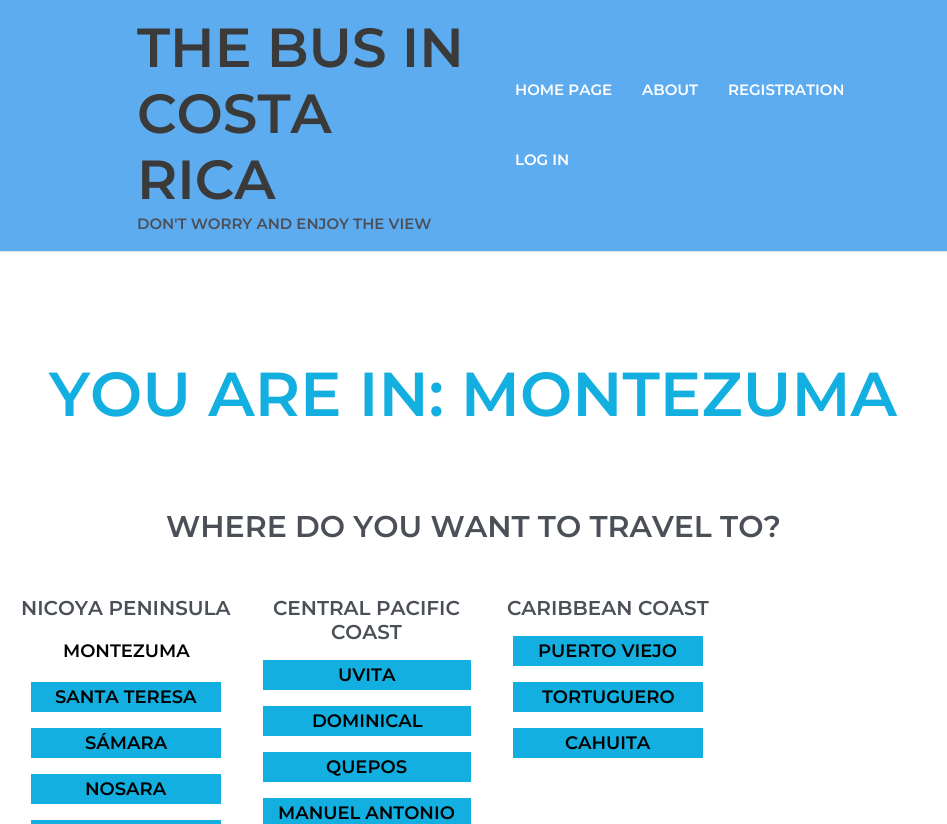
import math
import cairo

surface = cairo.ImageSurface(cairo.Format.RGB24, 947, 824)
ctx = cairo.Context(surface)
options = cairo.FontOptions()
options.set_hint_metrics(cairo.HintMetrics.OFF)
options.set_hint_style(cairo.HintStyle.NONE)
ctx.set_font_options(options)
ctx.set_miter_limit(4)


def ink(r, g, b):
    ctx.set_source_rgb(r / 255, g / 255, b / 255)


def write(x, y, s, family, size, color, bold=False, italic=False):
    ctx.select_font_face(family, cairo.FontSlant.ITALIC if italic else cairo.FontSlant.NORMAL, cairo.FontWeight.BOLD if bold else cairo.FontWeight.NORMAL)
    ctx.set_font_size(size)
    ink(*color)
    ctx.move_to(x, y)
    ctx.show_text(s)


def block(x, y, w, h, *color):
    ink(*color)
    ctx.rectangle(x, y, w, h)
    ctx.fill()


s1 = dict(family="Montserrat Thin", size=55, color=(58, 58, 58))
s2 = dict(family="Montserrat Thin", size=15, color=(75, 79, 88))
s3 = dict(family="Montserrat Thin", size=15, color=(255, 255, 255))
s4 = dict(family="Montserrat Thin", size=62, color=(18, 175, 224))
s5 = dict(family="Montserrat Thin", size=30, color=(75, 79, 88))
s6 = dict(family="Montserrat Thin", size=20, color=(75, 79, 88))
s7 = dict(family="Montserrat Thin", size=18, color=(0, 0, 0))

ink(255, 255, 255)
ctx.paint()
block(0, 0, 947, 251, 94, 172, 240)
block(0, 251, 947, 1, 229, 229, 229)
write(137, 67, "THE BUS IN", **s1)
write(137, 133, "COSTA", **s1)
write(137, 199, "RICA", **s1)
write(137, 229, "DON'T WORRY AND ENJOY THE VIEW", **s2)
write(515, 95, "HOME PAGE", **s3)
write(642, 95, "ABOUT", **s3)
write(728, 95, "REGISTRATION", **s3)
write(515, 165, "LOG IN", **s3)
write(49, 416, "YOU ARE IN: MONTEZUMA", **s4)
write(166, 537, "WHERE DO YOU WANT TO TRAVEL TO?", **s5)
write(21, 615, "NICOYA PENINSULA", **s6)
write(63, 657, "MONTEZUMA", **s7)
block(31, 682, 190, 30, 18, 175, 224)
write(55, 703, "SANTA TERESA", **s7)
block(31, 728, 190, 30, 18, 175, 224)
write(85, 749, "SÁMARA", **s7)
block(31, 774, 190, 30, 18, 175, 224)
write(85, 795, "NOSARA", **s7)
block(31, 820, 190, 4, 18, 175, 224)
write(273, 615, "CENTRAL PACIFIC", **s6)
write(331, 639, "COAST", **s6)
block(263, 660, 208, 30, 18, 175, 224)
write(338, 681, "UVITA", **s7)
block(263, 706, 208, 30, 18, 175, 224)
write(312, 727, "DOMINICAL", **s7)
block(263, 752, 208, 30, 18, 175, 224)
write(326, 773, "QUEPOS", **s7)
block(263, 798, 208, 26, 18, 175, 224)
write(278, 819, "MANUEL ANTONIO", **s7)
write(507, 615, "CARIBBEAN COAST", **s6)
block(513, 636, 190, 30, 18, 175, 224)
write(538, 657, "PUERTO VIEJO", **s7)
block(513, 682, 190, 30, 18, 175, 224)
write(542, 703, "TORTUGUERO", **s7)
block(513, 728, 190, 30, 18, 175, 224)
write(565, 749, "CAHUITA", **s7)
surface.write_to_png("screenshot.png")
